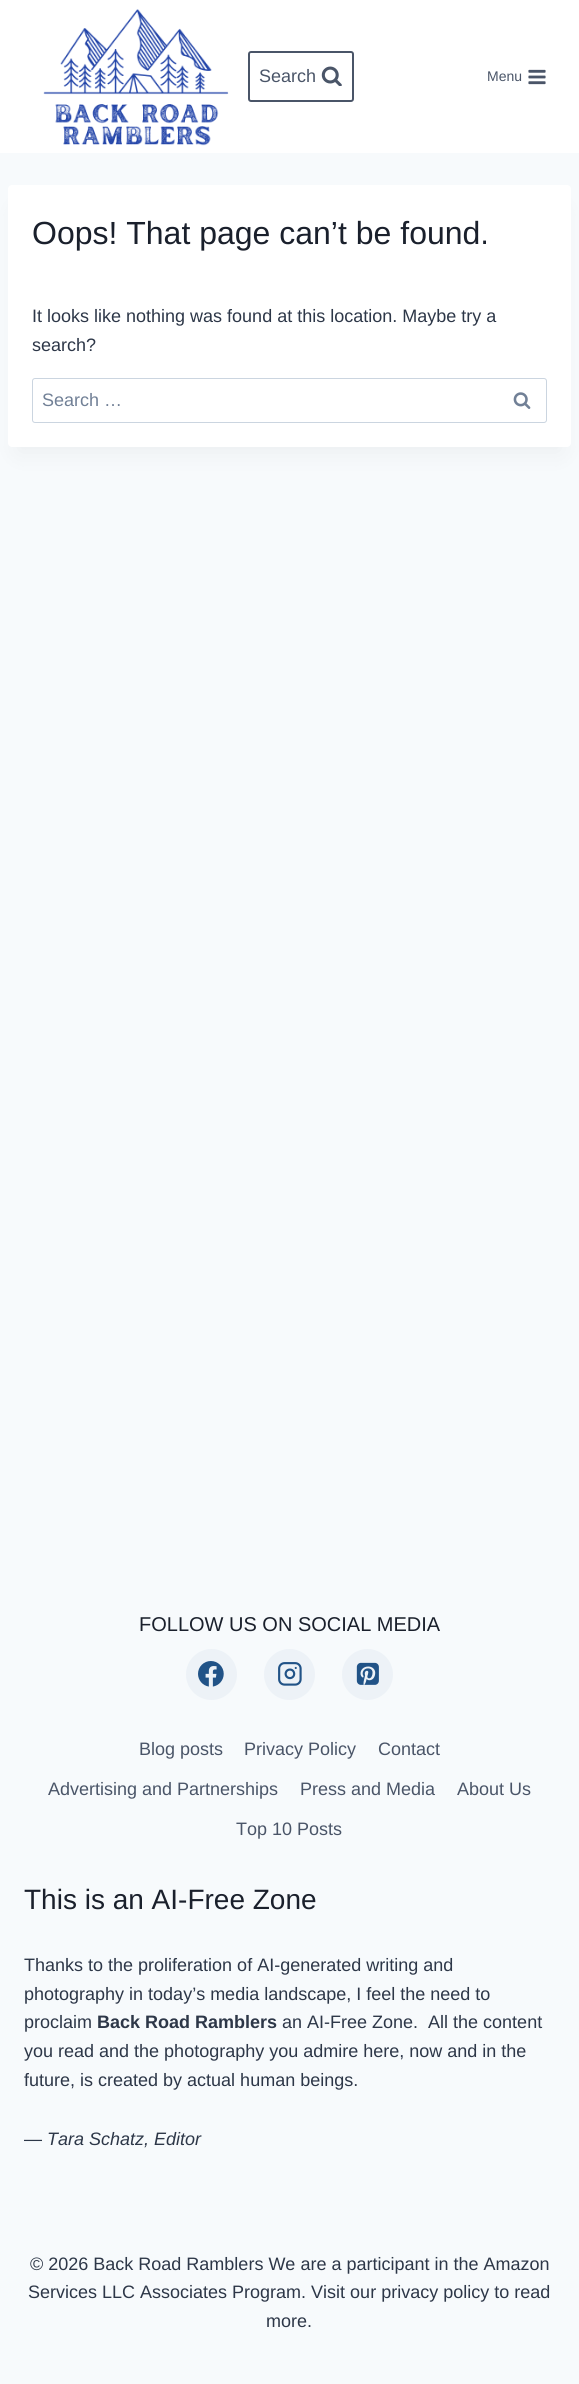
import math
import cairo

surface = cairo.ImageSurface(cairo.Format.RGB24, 579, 2384)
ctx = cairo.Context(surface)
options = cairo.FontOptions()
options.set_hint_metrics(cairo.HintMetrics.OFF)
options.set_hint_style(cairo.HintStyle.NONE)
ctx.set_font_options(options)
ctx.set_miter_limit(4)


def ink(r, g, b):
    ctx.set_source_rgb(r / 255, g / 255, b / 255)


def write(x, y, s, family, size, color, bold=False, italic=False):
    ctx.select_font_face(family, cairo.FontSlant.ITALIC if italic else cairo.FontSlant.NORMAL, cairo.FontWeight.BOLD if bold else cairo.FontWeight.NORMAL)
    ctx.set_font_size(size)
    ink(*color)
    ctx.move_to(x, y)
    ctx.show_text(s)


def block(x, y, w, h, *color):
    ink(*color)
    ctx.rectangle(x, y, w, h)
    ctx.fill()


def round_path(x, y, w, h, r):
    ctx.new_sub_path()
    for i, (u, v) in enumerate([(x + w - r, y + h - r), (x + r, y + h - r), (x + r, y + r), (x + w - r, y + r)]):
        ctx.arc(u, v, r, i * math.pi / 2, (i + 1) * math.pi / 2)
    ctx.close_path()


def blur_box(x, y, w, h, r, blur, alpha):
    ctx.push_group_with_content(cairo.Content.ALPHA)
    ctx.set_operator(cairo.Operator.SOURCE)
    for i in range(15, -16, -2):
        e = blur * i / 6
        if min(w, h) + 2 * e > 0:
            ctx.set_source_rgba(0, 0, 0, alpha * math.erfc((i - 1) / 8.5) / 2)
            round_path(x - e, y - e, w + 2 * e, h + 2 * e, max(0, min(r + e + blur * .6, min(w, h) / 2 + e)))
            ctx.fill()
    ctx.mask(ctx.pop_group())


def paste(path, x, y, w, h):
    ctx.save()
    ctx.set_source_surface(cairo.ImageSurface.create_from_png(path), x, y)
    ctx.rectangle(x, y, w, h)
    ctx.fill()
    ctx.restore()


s1 = dict(family="Liberation Sans", size=18, color=(74, 85, 104))
s2 = dict(family="Liberation Sans", size=14, color=(74, 85, 104))
s3 = dict(family="Liberation Sans", size=32, color=(26, 32, 44))
s4 = dict(family="Liberation Sans", size=18, color=(45, 55, 72))
s5 = dict(family="Liberation Sans", size=18, color=(113, 128, 150))
s6 = dict(family="Liberation Sans", size=20, color=(26, 32, 44))
s7 = dict(family="Liberation Sans", size=28, color=(26, 32, 44))
s8 = dict(family="Liberation Sans", size=18, color=(45, 55, 72), bold=True)
s9 = dict(family="Liberation Sans", size=18, color=(45, 55, 72), italic=True)

ink(247, 250, 252)
ctx.paint()
block(0, 0, 579, 153, 255, 255, 255)
paste("pic1.png", 43, 9, 186, 137)
round_path(249, 52, 104, 49, 2)
ink(74, 85, 104)
ctx.stroke()
write(259, 82, "Search", **s1)
paste("pic2.png", 321, 66, 21, 20)
write(487, 81, "Menu", **s2)
paste("pic3.png", 528, 69, 18, 16)
ink(0, 0, 0)
blur_box(18, 210, 543, 242, 0, 12.5, 0.05)
ink(255, 255, 255)
round_path(8, 185, 563, 262, 4)
ctx.fill()
write(32, 244, "Oops! That page can’t be found.", **s3)
write(32, 322, "It looks like nothing was found at this location. Maybe try a", **s4)
write(32, 351, "search?", **s4)
round_path(32.5, 378.5, 514, 44, 2.5)
ink(203, 213, 224)
ctx.set_line_width(1)
ctx.stroke()
write(42, 406, "Search …", **s5)
paste("pic4.png", 513, 392, 18, 17)
write(139, 1631, "FOLLOW US ON SOCIAL MEDIA", **s6)
ink(237, 242, 247)
ctx.new_path()
ctx.arc(211.5, 1674.5, 25.5, 0, 2 * math.pi)
ctx.fill()
paste("pic5.png", 198, 1661, 26, 26)
ctx.arc(289.5, 1674.5, 25.5, 0, 2 * math.pi)
ctx.fill()
paste("pic6.png", 278, 1662, 24, 24)
ctx.arc(367.5, 1674.5, 25.5, 0, 2 * math.pi)
ctx.fill()
paste("pic7.png", 356, 1662, 23, 23)
write(139, 1755, "Blog posts", **s1)
write(244, 1755, "Privacy Policy", **s1)
write(378, 1755, "Contact", **s1)
write(48, 1795, "Advertising and Partnerships", **s1)
write(300, 1795, "Press and Media", **s1)
write(457, 1795, "About Us", **s1)
write(236, 1835, "Top 10 Posts", **s1)
write(24, 1909, "This is an AI-Free Zone", **s7)
write(24, 1971, "Thanks to the proliferation of AI-generated writing and", **s4)
write(24, 2000, "photography in today’s media landscape, I feel the need to", **s4)
write(24, 2028, "proclaim", **s4)
write(97, 2028, "Back Road Ramblers", **s8)
write(282, 2028, "an AI-Free Zone.  All the content", **s4)
write(24, 2057, "you read and the photography you admire here, now and in the", **s4)
write(24, 2086, "future, is created by actual human beings.", **s4)
write(24, 2145, "—", **s4)
write(47, 2145, "Tara Schatz, Editor", **s9)
write(30, 2270, "© 2026 Back Road Ramblers We are a participant in the Amazon", **s4)
write(28, 2298, "Services LLC Associates Program. Visit our privacy policy to read", **s4)
write(266, 2327, "more.", **s4)
surface.write_to_png("screenshot.png")
